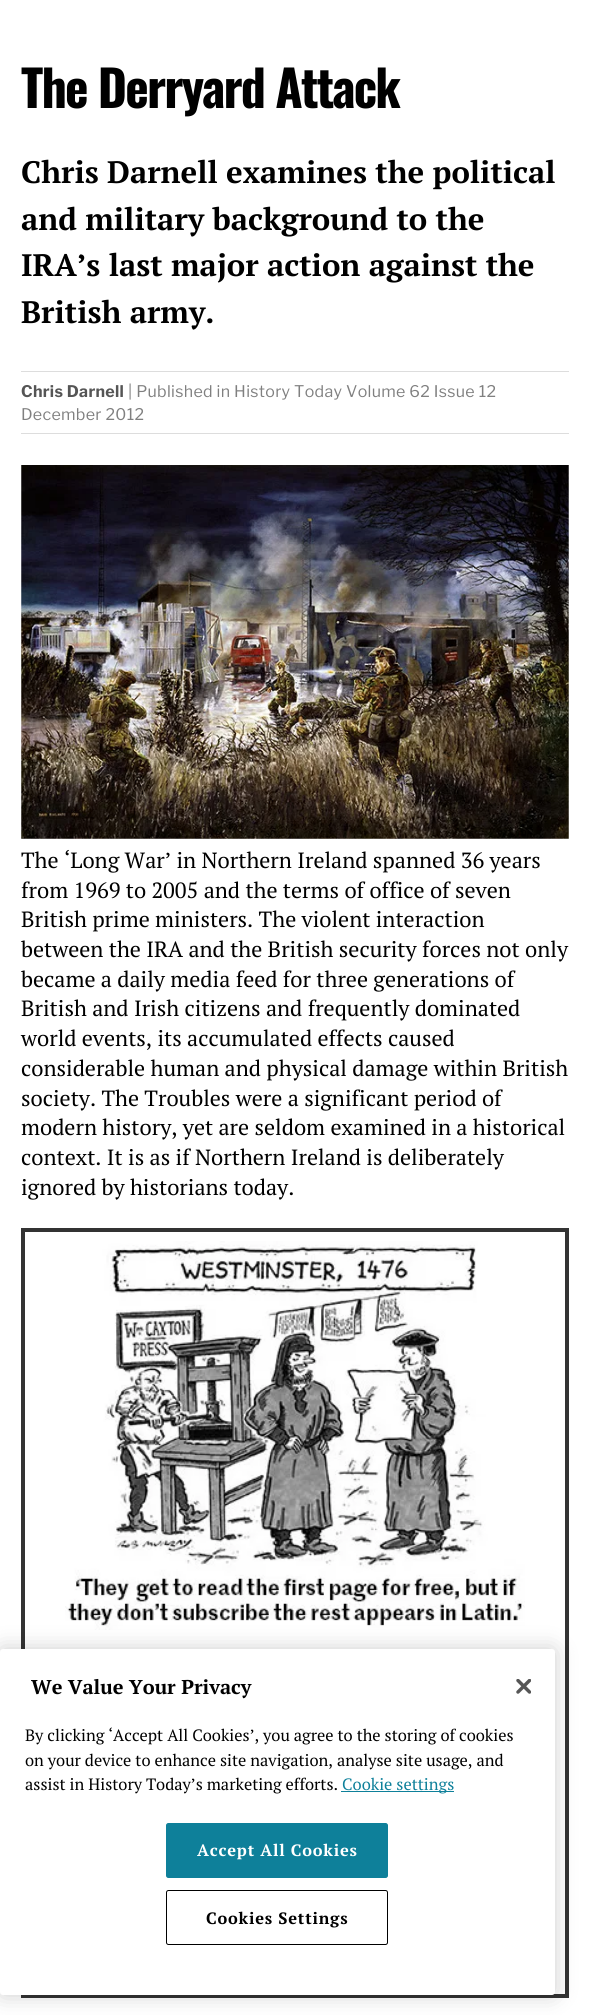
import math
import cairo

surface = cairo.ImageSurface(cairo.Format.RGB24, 590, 2015)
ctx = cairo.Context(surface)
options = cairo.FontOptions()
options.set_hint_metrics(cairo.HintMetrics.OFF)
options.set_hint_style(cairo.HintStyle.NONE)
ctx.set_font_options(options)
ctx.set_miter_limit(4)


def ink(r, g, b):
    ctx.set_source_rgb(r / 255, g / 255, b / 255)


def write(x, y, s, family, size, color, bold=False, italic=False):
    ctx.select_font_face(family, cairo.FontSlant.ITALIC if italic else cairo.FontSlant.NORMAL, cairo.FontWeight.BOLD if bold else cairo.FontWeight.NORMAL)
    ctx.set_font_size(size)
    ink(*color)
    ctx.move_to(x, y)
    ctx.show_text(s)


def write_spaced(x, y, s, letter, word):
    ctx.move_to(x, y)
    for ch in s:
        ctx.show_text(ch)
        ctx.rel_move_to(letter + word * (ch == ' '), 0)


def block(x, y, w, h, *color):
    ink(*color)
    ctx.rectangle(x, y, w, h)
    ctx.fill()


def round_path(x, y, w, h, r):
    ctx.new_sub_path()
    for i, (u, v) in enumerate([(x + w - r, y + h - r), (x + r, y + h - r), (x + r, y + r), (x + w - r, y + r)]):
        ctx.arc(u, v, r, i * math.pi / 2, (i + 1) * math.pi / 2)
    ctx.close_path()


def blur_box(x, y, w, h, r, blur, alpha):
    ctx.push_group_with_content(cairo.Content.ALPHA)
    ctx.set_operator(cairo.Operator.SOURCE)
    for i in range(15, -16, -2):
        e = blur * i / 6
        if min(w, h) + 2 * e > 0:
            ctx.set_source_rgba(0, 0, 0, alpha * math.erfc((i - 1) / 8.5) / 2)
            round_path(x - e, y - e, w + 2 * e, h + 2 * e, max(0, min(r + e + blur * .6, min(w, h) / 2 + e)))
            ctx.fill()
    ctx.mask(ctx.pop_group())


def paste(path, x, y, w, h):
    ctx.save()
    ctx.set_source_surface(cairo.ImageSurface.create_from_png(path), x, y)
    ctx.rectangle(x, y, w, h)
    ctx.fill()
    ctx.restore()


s1 = dict(family="PT Serif", size=31, color=(0, 0, 0), bold=True)
s2 = dict(family="PT Serif", size=22, color=(0, 0, 0))
s3 = dict(family="PT Serif", size=20, color=(0, 0, 0), bold=True)
s4 = dict(family="PT Serif", size=16.4, color=(0, 0, 0))
s5 = dict(family="PT Serif", size=16.4, color=(14, 128, 154))

ink(255, 255, 255)
ctx.paint()
ctx.select_font_face("Oswald", cairo.FontSlant.NORMAL, cairo.FontWeight.BOLD)
ctx.set_font_size(50)
ink(0, 0, 0)
write_spaced(21, 108, "The Derryard Attack", -1.8, 0)
write(21, 183, "Chris Darnell examines the political", **s1)
write(21, 230, "and military background to the", **s1)
write(21, 276, "IRA’s last major action against the", **s1)
write(21, 323, "British army.", **s1)
block(21, 371, 548, 1, 221, 221, 221)
block(21, 433, 548, 1, 221, 221, 221)
ctx.select_font_face("Libre Franklin", cairo.FontSlant.NORMAL, cairo.FontWeight.BOLD)
ctx.set_font_size(16)
ink(85, 85, 85)
write_spaced(21, 397, "Chris Darnell", 0.3, 0)
ctx.select_font_face("Libre Franklin")
ink(128, 128, 128)
write_spaced(128, 397, "| Published in History Today Volume 62 Issue 12", 0.3, 0)
write_spaced(21, 420, "December 2012", 0.3, 0)
paste("pic1.png", 21, 465, 548, 374)
write(21, 868, "The ‘Long War’ in Northern Ireland spanned 36 years", **s2)
write(21, 898, "from 1969 to 2005 and the terms of office of seven", **s2)
write(21, 927, "British prime ministers. The violent interaction", **s2)
write(21, 957, "between the IRA and the British security forces not only", **s2)
write(21, 987, "became a daily media feed for three generations of", **s2)
write(21, 1016, "British and Irish citizens and frequently dominated", **s2)
write(21, 1046, "world events, its accumulated effects caused", **s2)
write(21, 1076, "considerable human and physical damage within British", **s2)
write(21, 1106, "society. The Troubles were a significant period of", **s2)
write(21, 1135, "modern history, yet are seldom examined in a historical", **s2)
write(21, 1165, "context. It is as if Northern Ireland is deliberately", **s2)
write(21, 1195, "ignored by historians today.", **s2)
ctx.rectangle(23, 1230, 544, 766)
ink(51, 51, 51)
ctx.set_line_width(4)
ctx.stroke()
paste("pic2.png", 65, 1241, 460, 389)
ink(0, 0, 0)
blur_box(0, 1649, 555, 346, 3, 11, 0.2)
ink(255, 255, 255)
round_path(0, 1649, 555, 346, 3)
ctx.fill()
write(31, 1694, "We Value Your Privacy", **s3)
write(25, 1741, "By clicking ‘Accept All Cookies’, you agree to the storing of cookies", **s4)
write(25, 1766, "on your device to enhance site navigation, analyse site usage, and", **s4)
write(25, 1790, "assist in History Today’s marketing efforts.", **s4)
block(341, 1791, 113, 1, 14, 128, 154)
write(342, 1790, "Cookie settings", **s5)
paste("pic3.png", 516, 1679, 15, 15)
round_path(166.5, 1823.5, 221, 54, 2)
ctx.fill_preserve()
ctx.set_line_width(1)
ctx.stroke()
ctx.select_font_face("PT Serif", cairo.FontSlant.NORMAL, cairo.FontWeight.BOLD)
ink(255, 255, 255)
write_spaced(197, 1856, "Accept All Cookies", 0.8, 0)
round_path(166.5, 1890.5, 221, 54, 2)
ink(0, 0, 0)
ctx.stroke()
write_spaced(206, 1924, "Cookies Settings", 0.8, 0)
surface.write_to_png("screenshot.png")
